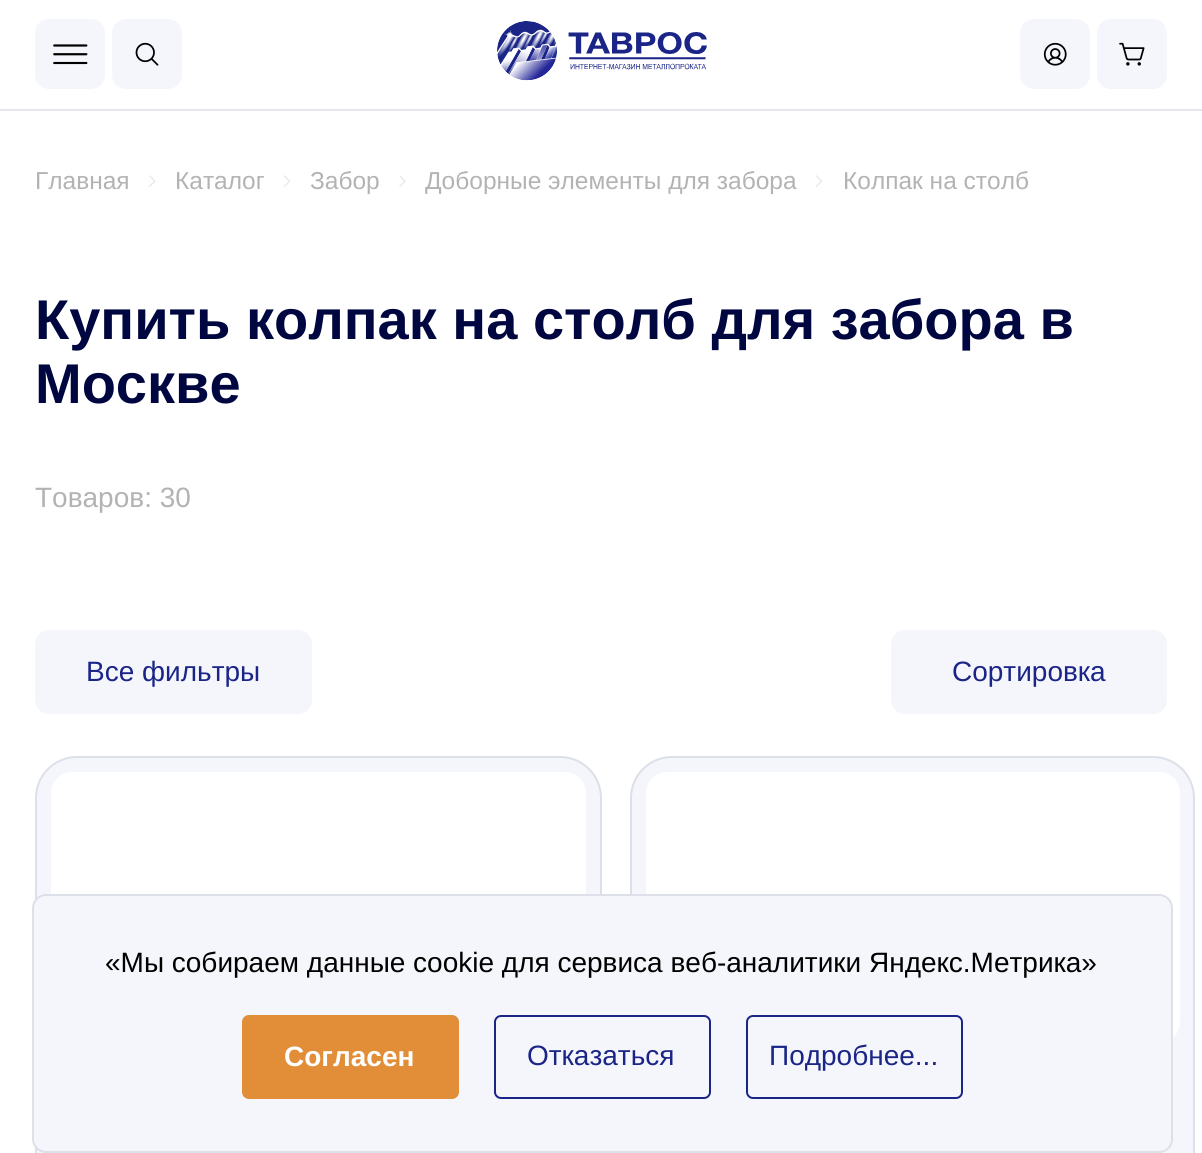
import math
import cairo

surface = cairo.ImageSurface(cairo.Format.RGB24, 1202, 1153)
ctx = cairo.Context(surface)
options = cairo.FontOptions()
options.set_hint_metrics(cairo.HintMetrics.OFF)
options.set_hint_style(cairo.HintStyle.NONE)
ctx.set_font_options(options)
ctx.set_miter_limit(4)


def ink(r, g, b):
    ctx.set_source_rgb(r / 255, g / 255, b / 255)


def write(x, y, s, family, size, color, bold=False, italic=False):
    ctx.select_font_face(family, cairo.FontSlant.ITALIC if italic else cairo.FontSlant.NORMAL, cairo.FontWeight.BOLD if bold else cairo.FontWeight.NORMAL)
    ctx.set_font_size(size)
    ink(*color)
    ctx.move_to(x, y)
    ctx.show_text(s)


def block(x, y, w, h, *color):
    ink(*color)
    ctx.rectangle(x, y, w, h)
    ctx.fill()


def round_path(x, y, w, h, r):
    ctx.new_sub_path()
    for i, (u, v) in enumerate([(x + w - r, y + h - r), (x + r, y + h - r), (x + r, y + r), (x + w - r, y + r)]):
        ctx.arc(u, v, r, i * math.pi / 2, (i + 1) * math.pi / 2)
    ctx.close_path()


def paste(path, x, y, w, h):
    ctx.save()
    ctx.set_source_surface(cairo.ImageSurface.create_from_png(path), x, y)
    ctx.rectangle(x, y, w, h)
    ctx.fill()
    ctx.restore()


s1 = dict(family="Liberation Sans", size=24.5, color=(179, 179, 179))
s2 = dict(family="Liberation Sans", size=56, color=(0, 6, 63), bold=True)
s3 = dict(family="Liberation Sans", size=28, color=(179, 179, 179))
s4 = dict(family="Liberation Sans", size=28, color=(26, 37, 135))
s5 = dict(family="Liberation Sans", size=28, color=(0, 0, 0))
s6 = dict(family="Liberation Sans", size=28, color=(255, 255, 255), bold=True)

ink(255, 255, 255)
ctx.paint()
block(0, 109, 1202, 2, 230, 231, 236)
ink(245, 246, 252)
round_path(35, 19, 70, 70, 14)
ctx.fill()
paste("pic1.png", 53, 44, 35, 21)
round_path(112, 19, 70, 70, 14)
ctx.fill()
paste("pic2.png", 135, 42, 24, 24)
paste("pic3.png", 497, 21, 210, 60)
round_path(1020, 19, 70, 70, 14)
ctx.fill()
paste("pic4.png", 1043, 42, 24, 24)
round_path(1097, 19, 70, 70, 14)
ctx.fill()
paste("pic5.png", 1119, 42, 26, 24)
write(35, 189, "Главная", **s1)
paste("pic6.png", 149, 175, 7, 12)
write(175, 189, "Каталог", **s1)
paste("pic7.png", 284, 175, 7, 12)
write(310, 189, "Забор", **s1)
paste("pic8.png", 399, 175, 7, 12)
write(425, 189, "Доборные элементы для забора", **s1)
paste("pic7.png", 816, 175, 7, 12)
write(843, 189, "Колпак на столб", **s1)
write(35, 339, "Купить колпак на столб для забора в", **s2)
write(35, 403, "Москве", **s2)
write(35, 507, "Товаров: 30", **s3)
ink(245, 246, 252)
round_path(35, 630, 277, 84, 14)
ctx.fill()
write(86, 681, "Все фильтры", **s4)
ink(245, 246, 252)
round_path(891, 630, 276, 84, 14)
ctx.fill()
write(952, 681, "Сортировка", **s4)
ink(245, 246, 252)
round_path(36, 757, 565, 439, 41)
ctx.fill_preserve()
ink(221, 223, 233)
ctx.stroke()
ink(255, 255, 255)
round_path(51, 772, 535, 271, 21)
ctx.fill()
ink(245, 246, 252)
round_path(631, 757, 563, 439, 41)
ctx.fill_preserve()
ink(221, 223, 233)
ctx.stroke()
ink(255, 255, 255)
round_path(646, 772, 534, 271, 21)
ctx.fill()
ink(245, 246, 252)
round_path(33, 895, 1139, 257, 13)
ctx.fill_preserve()
ink(221, 223, 233)
ctx.stroke()
write(105, 972, "«Мы собираем данные cookie для сервиса веб-аналитики Яндекс.Метрика»", **s5)
ink(226, 142, 56)
round_path(242, 1015, 217, 84, 7)
ctx.fill()
write(284, 1066, "Согласен", **s6)
round_path(495, 1016, 215, 82, 6)
ink(26, 37, 135)
ctx.stroke()
write(527, 1065, "Отказаться", **s4)
round_path(747, 1016, 215, 82, 6)
ctx.stroke()
write(769, 1065, "Подробнее...", **s4)
surface.write_to_png("screenshot.png")
